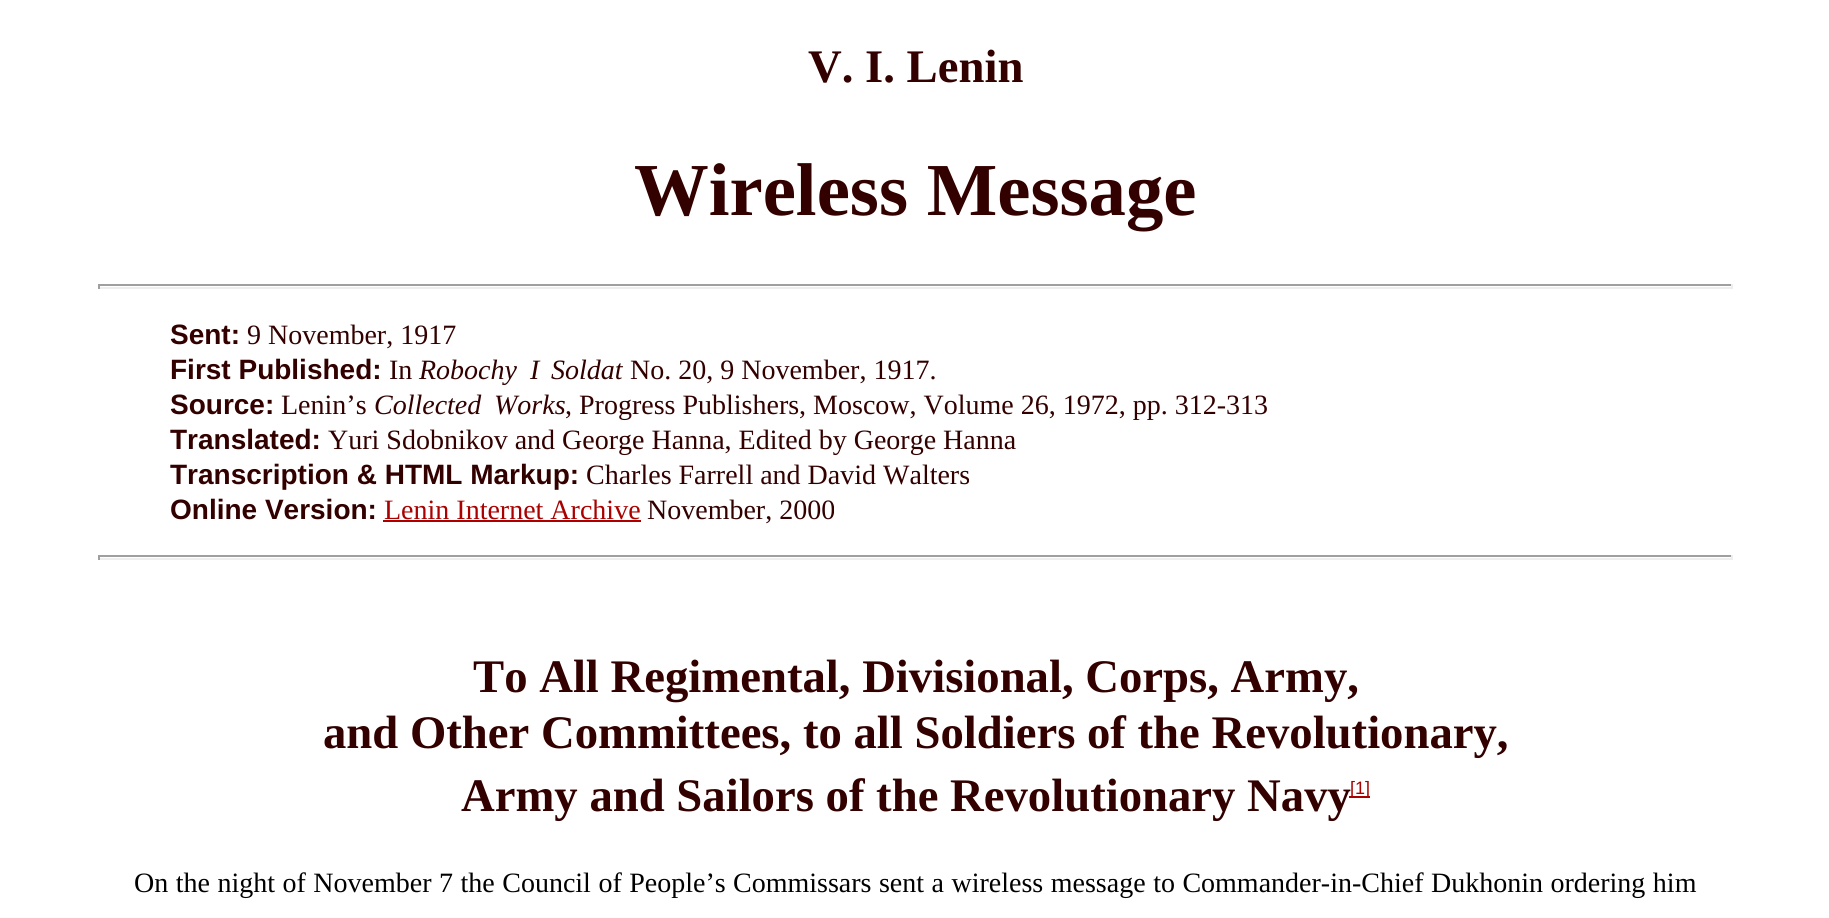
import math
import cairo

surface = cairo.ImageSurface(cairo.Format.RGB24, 1829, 918)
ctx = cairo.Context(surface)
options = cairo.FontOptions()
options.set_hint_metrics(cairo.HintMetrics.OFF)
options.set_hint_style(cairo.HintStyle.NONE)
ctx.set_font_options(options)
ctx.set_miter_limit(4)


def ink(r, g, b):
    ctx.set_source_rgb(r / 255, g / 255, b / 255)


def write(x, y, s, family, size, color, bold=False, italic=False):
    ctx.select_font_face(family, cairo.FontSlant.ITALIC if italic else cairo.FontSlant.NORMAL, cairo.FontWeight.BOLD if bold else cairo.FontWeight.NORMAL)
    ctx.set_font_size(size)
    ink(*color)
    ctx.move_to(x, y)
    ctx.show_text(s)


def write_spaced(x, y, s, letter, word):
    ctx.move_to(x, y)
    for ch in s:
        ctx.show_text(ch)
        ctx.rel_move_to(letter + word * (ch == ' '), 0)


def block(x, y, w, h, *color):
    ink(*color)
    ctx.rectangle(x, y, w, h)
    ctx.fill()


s1 = dict(family="Liberation Serif", size=46.7, color=(51, 0, 0), bold=True)
s2 = dict(family="Liberation Serif", size=74.75, color=(51, 0, 0), bold=True)
s3 = dict(family="Liberation Sans", size=28, color=(51, 0, 0), bold=True)
s4 = dict(family="Liberation Serif", size=28, color=(51, 0, 0))
s5 = dict(family="Liberation Serif", size=28, color=(51, 0, 0), italic=True)
s6 = dict(family="Liberation Serif", size=28, color=(170, 0, 0))
s7 = dict(family="Liberation Sans", size=18, color=(170, 0, 0))

ink(255, 255, 255)
ctx.paint()
write(808, 82, "V. I. Lenin", **s1)
write(634, 215, "Wireless Message", **s2)
block(98, 284, 1635, 2, 159, 159, 159)
block(1731, 284, 2, 5, 238, 238, 238)
block(98, 287, 1635, 2, 238, 238, 238)
block(98, 284, 2, 5, 159, 159, 159)
write(170, 344, "Sent:", **s3)
write(247, 344, "9 November, 1917", **s4)
write(170, 379, "First Published:", **s3)
write(389, 379, "In", **s4)
ctx.select_font_face("Liberation Serif", cairo.FontSlant.ITALIC)
write_spaced(419, 379, "Robochy I", 0, 6)
write(551, 379, "Soldat", **s5)
write(630, 379, "No. 20, 9 November, 1917.", **s4)
write(170, 414, "Source:", **s3)
write(281, 414, "Lenin’s", **s4)
write(374, 414, "Collected", **s5)
write(494, 414, "Works", **s5)
write(565, 414, ", Progress Publishers, Moscow, Volume 26, 1972, pp. 312-313", **s4)
write(170, 449, "Translated:", **s3)
write(328, 449, "Yuri Sdobnikov and George Hanna, Edited by George Hanna", **s4)
write(170, 484, "Transcription & HTML Markup:", **s3)
write(586, 484, "Charles Farrell and David Walters", **s4)
write(170, 519, "Online Version:", **s3)
write(384, 519, "Lenin Internet Archive", **s6)
block(383, 520, 258, 2, 170, 0, 0)
write(647, 519, "November, 2000", **s4)
block(98, 555, 1635, 2, 159, 159, 159)
block(1731, 555, 2, 5, 238, 238, 238)
block(98, 558, 1635, 2, 238, 238, 238)
block(98, 555, 2, 5, 159, 159, 159)
write(473, 692, "To All Regimental, Divisional, Corps, Army,", **s1)
write(323, 748, "and Other Committees, to all Soldiers of the Revolutionary,", **s1)
write(461, 811, "Army and Sailors of the Revolutionary Navy", **s1)
block(1349, 796, 21, 2, 170, 0, 0)
write(1350, 794, "[1]", **s7)
ctx.select_font_face("Liberation Serif")
ctx.set_font_size(28)
ink(0, 0, 0)
write_spaced(134, 892, "On the night of November 7 the Council of People’s", 0, 0.5)
write_spaced(733, 892, "Commissars sent a wireless message to Commander-in-Chief", 0, 0.5)
write_spaced(1431, 892, "Dukhonin ordering him", 0, 0.5)
surface.write_to_png("screenshot.png")
